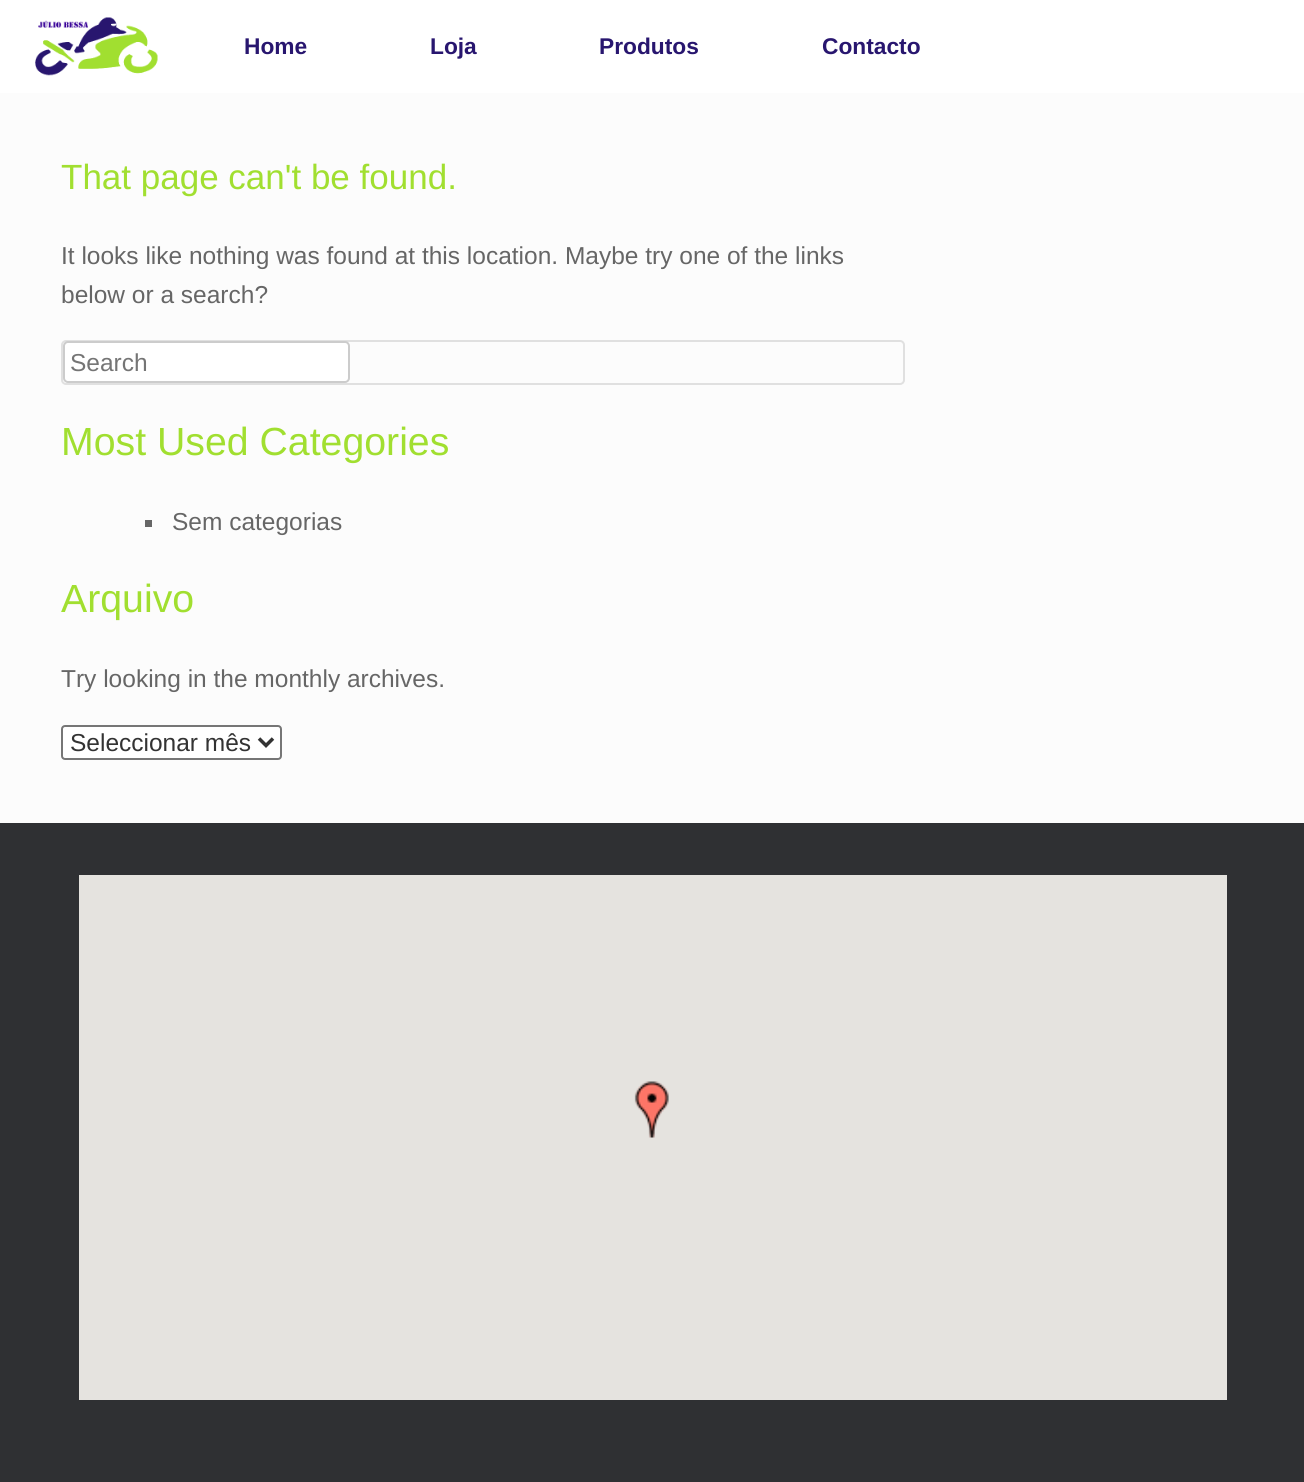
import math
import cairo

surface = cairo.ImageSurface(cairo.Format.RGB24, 1304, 1482)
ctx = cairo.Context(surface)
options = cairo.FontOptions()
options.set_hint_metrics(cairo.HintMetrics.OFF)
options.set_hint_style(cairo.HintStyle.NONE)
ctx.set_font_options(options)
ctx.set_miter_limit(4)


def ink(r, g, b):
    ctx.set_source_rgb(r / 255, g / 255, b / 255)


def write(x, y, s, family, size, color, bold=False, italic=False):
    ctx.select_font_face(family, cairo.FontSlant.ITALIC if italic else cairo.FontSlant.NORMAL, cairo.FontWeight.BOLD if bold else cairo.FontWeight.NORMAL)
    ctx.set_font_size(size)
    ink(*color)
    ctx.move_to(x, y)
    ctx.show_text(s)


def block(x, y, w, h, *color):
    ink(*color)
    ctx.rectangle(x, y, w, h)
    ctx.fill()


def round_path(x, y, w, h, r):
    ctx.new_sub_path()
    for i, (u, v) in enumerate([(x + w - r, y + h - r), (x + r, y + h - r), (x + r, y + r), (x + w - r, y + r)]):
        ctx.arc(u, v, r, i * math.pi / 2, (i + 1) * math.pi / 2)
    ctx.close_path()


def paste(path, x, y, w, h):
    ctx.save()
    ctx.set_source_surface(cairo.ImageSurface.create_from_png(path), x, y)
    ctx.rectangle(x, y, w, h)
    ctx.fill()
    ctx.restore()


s1 = dict(family="Liberation Sans", size=22.75, color=(40, 22, 111), bold=True)
s2 = dict(family="Liberation Sans", size=35, color=(161, 223, 48))
s3 = dict(family="Liberation Sans", size=24.5, color=(102, 102, 102))
s4 = dict(family="Liberation Sans", size=24.5, color=(117, 117, 117))
s5 = dict(family="Liberation Sans", size=39.25, color=(161, 223, 48))
s6 = dict(family="Liberation Sans", size=24.5, color=(51, 51, 51))

ink(47, 48, 51)
ctx.paint()
block(0, 0, 1304, 93, 255, 255, 255)
paste("pic1.png", 35, 17, 123, 59)
write(244, 54, "Home", **s1)
write(430, 54, "Loja", **s1)
write(599, 54, "Produtos", **s1)
write(822, 54, "Contacto", **s1)
block(0, 93, 1304, 730, 252, 252, 252)
write(61, 189, "That page can't be found.", **s2)
write(61, 264, "It looks like nothing was found at this location. Maybe try one of the links", **s3)
write(61, 303, "below or a search?", **s3)
round_path(62, 341, 842, 43, 4)
ink(224, 224, 224)
ctx.stroke()
ink(255, 255, 255)
round_path(64, 342, 285, 40, 4)
ctx.fill_preserve()
ink(204, 204, 204)
ctx.stroke()
write(70, 371, "Search", **s4)
write(61, 455, "Most Used Categories", **s5)
block(145, 520, 7, 7, 102, 102, 102)
write(172, 530, "Sem categorias", **s3)
write(61, 612, "Arquivo", **s5)
write(61, 687, "Try looking in the monthly archives.", **s3)
ink(255, 255, 255)
round_path(62, 726, 219, 33, 3)
ctx.fill_preserve()
ink(118, 118, 118)
ctx.stroke()
ctx.new_path()
ctx.move_to(259, 738.5)
ctx.line_to(266, 745.5)
ctx.line_to(273, 738.5)
ink(51, 51, 51)
ctx.set_line_width(3.5)
ctx.stroke()
write(70, 751, "Seleccionar mês", **s6)
block(79, 875, 1148, 525, 229, 227, 223)
paste("pic2.png", 634, 1081, 35, 57)
surface.write_to_png("screenshot.png")
